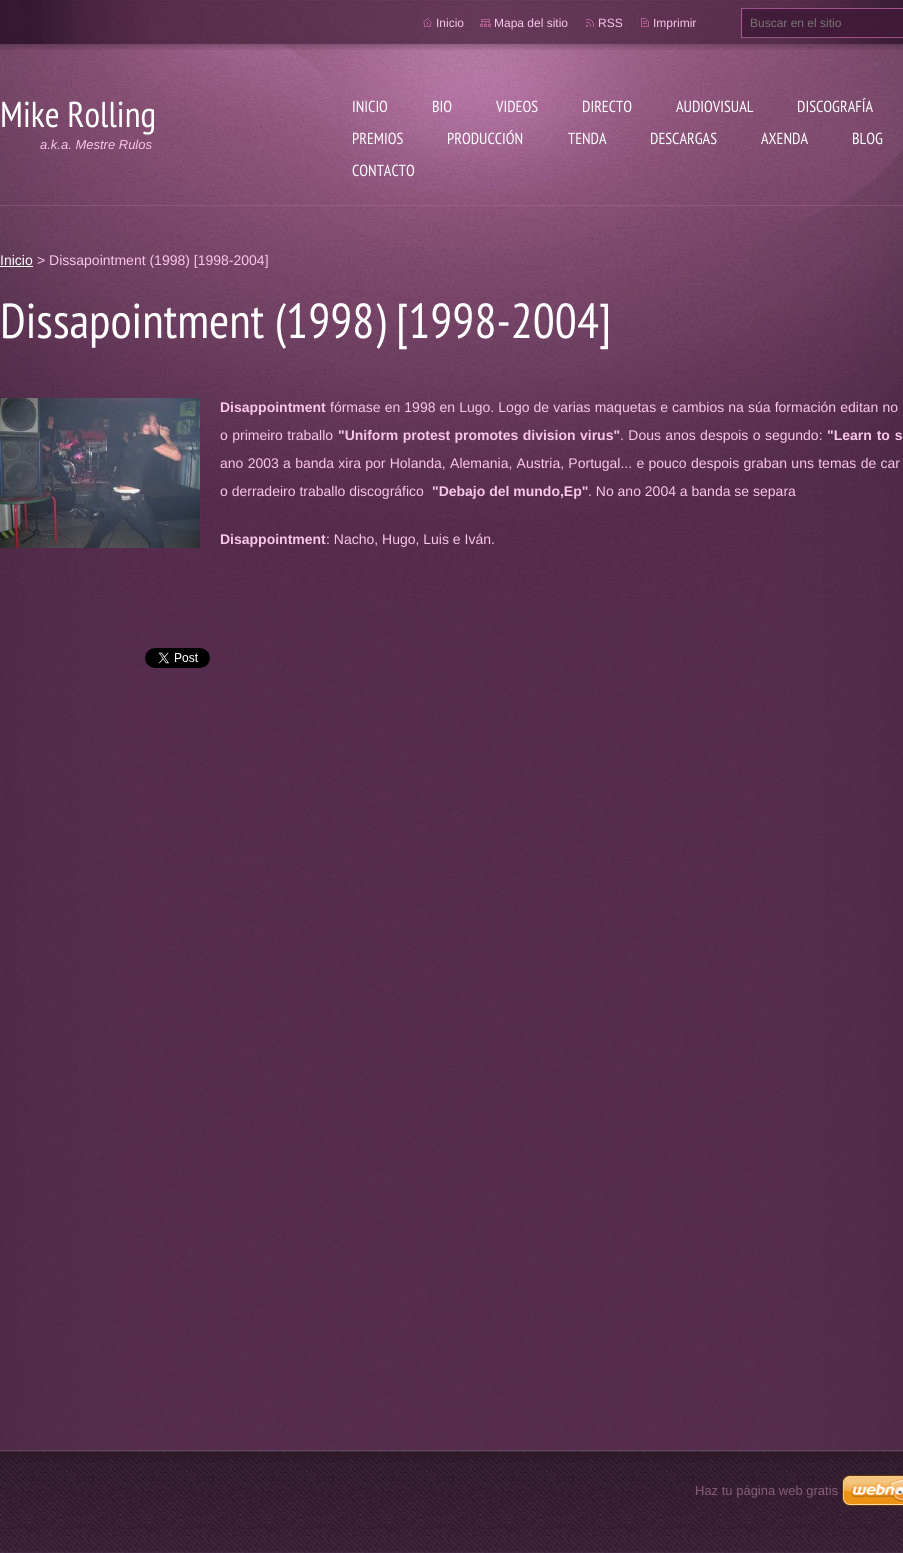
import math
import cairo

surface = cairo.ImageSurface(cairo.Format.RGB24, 903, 1553)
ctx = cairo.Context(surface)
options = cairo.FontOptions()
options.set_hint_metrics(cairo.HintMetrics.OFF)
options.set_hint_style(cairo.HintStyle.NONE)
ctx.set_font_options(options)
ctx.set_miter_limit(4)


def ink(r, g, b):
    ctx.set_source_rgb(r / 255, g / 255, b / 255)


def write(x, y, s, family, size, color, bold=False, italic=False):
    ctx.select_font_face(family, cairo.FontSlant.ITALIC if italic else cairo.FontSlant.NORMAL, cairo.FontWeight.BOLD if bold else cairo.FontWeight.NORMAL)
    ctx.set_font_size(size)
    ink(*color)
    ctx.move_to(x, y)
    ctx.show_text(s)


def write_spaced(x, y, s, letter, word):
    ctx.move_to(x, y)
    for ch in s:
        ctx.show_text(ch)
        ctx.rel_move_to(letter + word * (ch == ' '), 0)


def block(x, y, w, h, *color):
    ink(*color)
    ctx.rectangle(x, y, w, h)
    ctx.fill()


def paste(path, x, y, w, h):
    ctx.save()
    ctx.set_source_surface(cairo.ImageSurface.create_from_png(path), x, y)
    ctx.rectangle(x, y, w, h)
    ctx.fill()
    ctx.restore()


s1 = dict(family="Liberation Sans", size=12, color=(251, 197, 236))
s2 = dict(family="Liberation Sans", size=12, color=(117, 117, 117))
s3 = dict(family="PT Sans Narrow", size=36, color=(255, 255, 255))
s4 = dict(family="Liberation Sans", size=13, color=(251, 197, 236), italic=True)
s5 = dict(family="PT Sans Narrow", size=16, color=(255, 255, 255))
s6 = dict(family="Liberation Sans", size=14, color=(255, 255, 255))
s7 = dict(family="Liberation Sans", size=14, color=(251, 197, 236))
s8 = dict(family="PT Sans Narrow", size=49, color=(255, 255, 255))
s9 = dict(family="Liberation Sans", size=14, color=(251, 197, 236), bold=True)
s10 = dict(family="Liberation Sans", size=13, color=(134, 92, 122))

ink(255, 255, 255)
ctx.paint()
paste("pic1.png", 0, 600, 903, 850)
paste("pic2.png", 0, 44, 903, 556)
ctx.set_source_rgba(0.788, 0.486, 0.725, 0.26)
ctx.rectangle(0, 205, 903, 1)
ctx.fill()
paste("pic3.png", 0, 0, 903, 50)
paste("pic4.png", 42, 0, 861, 44)
paste("pic5.png", 423, 18, 9, 9)
write(436, 27, "Inicio", **s1)
paste("pic6.png", 480, 19, 11, 8)
write(494, 27, "Mapa del sitio", **s1)
paste("pic7.png", 586, 19, 8, 8)
write(598, 27, "RSS", **s1)
paste("pic8.png", 641, 18, 8, 9)
write(653, 27, "Imprimir", **s1)
paste("pic9.png", 741, 8, 162, 30)
write(750, 27, "Buscar en el sitio", **s2)
write(0, 127, "Mike Rolling", **s3)
write(40, 149, "a.k.a. Mestre Rulos", **s4)
write(352, 112, "INICIO", **s5)
write(432, 112, "BIO", **s5)
write(496, 112, "VIDEOS", **s5)
write(582, 112, "DIRECTO", **s5)
write(676, 112, "AUDIOVISUAL", **s5)
write(797, 112, "DISCOGRAFÍA", **s5)
write(352, 144, "PREMIOS", **s5)
write(447, 144, "PRODUCCIÓN", **s5)
write(568, 144, "TENDA", **s5)
write(650, 144, "DESCARGAS", **s5)
write(761, 144, "AXENDA", **s5)
write(852, 144, "BLOG", **s5)
write(352, 176, "CONTACTO", **s5)
write(0, 265, "Inicio", **s6)
block(0, 266, 33, 1, 255, 255, 255)
write(37, 265, "> Dissapointment (1998) [1998-2004]", **s7)
write(0, 338, "Dissapointment (1998) [1998-2004]", **s8)
paste("pic10.png", 0, 398, 200, 150)
write(220, 412, "Disappointment", **s9)
ctx.select_font_face("Liberation Sans")
write_spaced(330, 412, "fórmase en 1998 en Lugo. Logo de varias maquetas e cambios na súa formación editan no", 0, 0.2)
write_spaced(220, 440, "o primeiro traballo", 0, 0.5)
ctx.select_font_face("Liberation Sans", cairo.FontSlant.NORMAL, cairo.FontWeight.BOLD)
write_spaced(338, 440, "\"Uniform protest promotes division virus\"", 0, 0.5)
ctx.select_font_face("Liberation Sans")
write_spaced(620, 440, ". Dous anos despois o segundo:", 0, 0.5)
ctx.select_font_face("Liberation Sans", cairo.FontSlant.NORMAL, cairo.FontWeight.BOLD)
write_spaced(827, 440, "\"Learn to s", 0, 1)
ctx.select_font_face("Liberation Sans")
write_spaced(220, 468, "ano 2003 a banda xira por Holanda, Alemania, Austria, Portugal... e pouco despois graban uns temas de car", 0, 0.4)
write(220, 496, "o derradeiro traballo discográfico", **s7)
write(432, 496, "\"Debajo del mundo,Ep\"", **s9)
write(588, 496, ". No ano 2004 a banda se separa", **s7)
write(220, 544, "Disappointment", **s9)
write(326, 544, ": Nacho, Hugo, Luis e Iván.", **s7)
paste("pic11.png", 145, 648, 65, 20)
paste("pic12.png", 0, 1450, 903, 103)
write(695, 1495, "Haz tu página web gratis", **s10)
paste("pic13.png", 842, 1475, 61, 31)
surface.write_to_png("screenshot.png")
